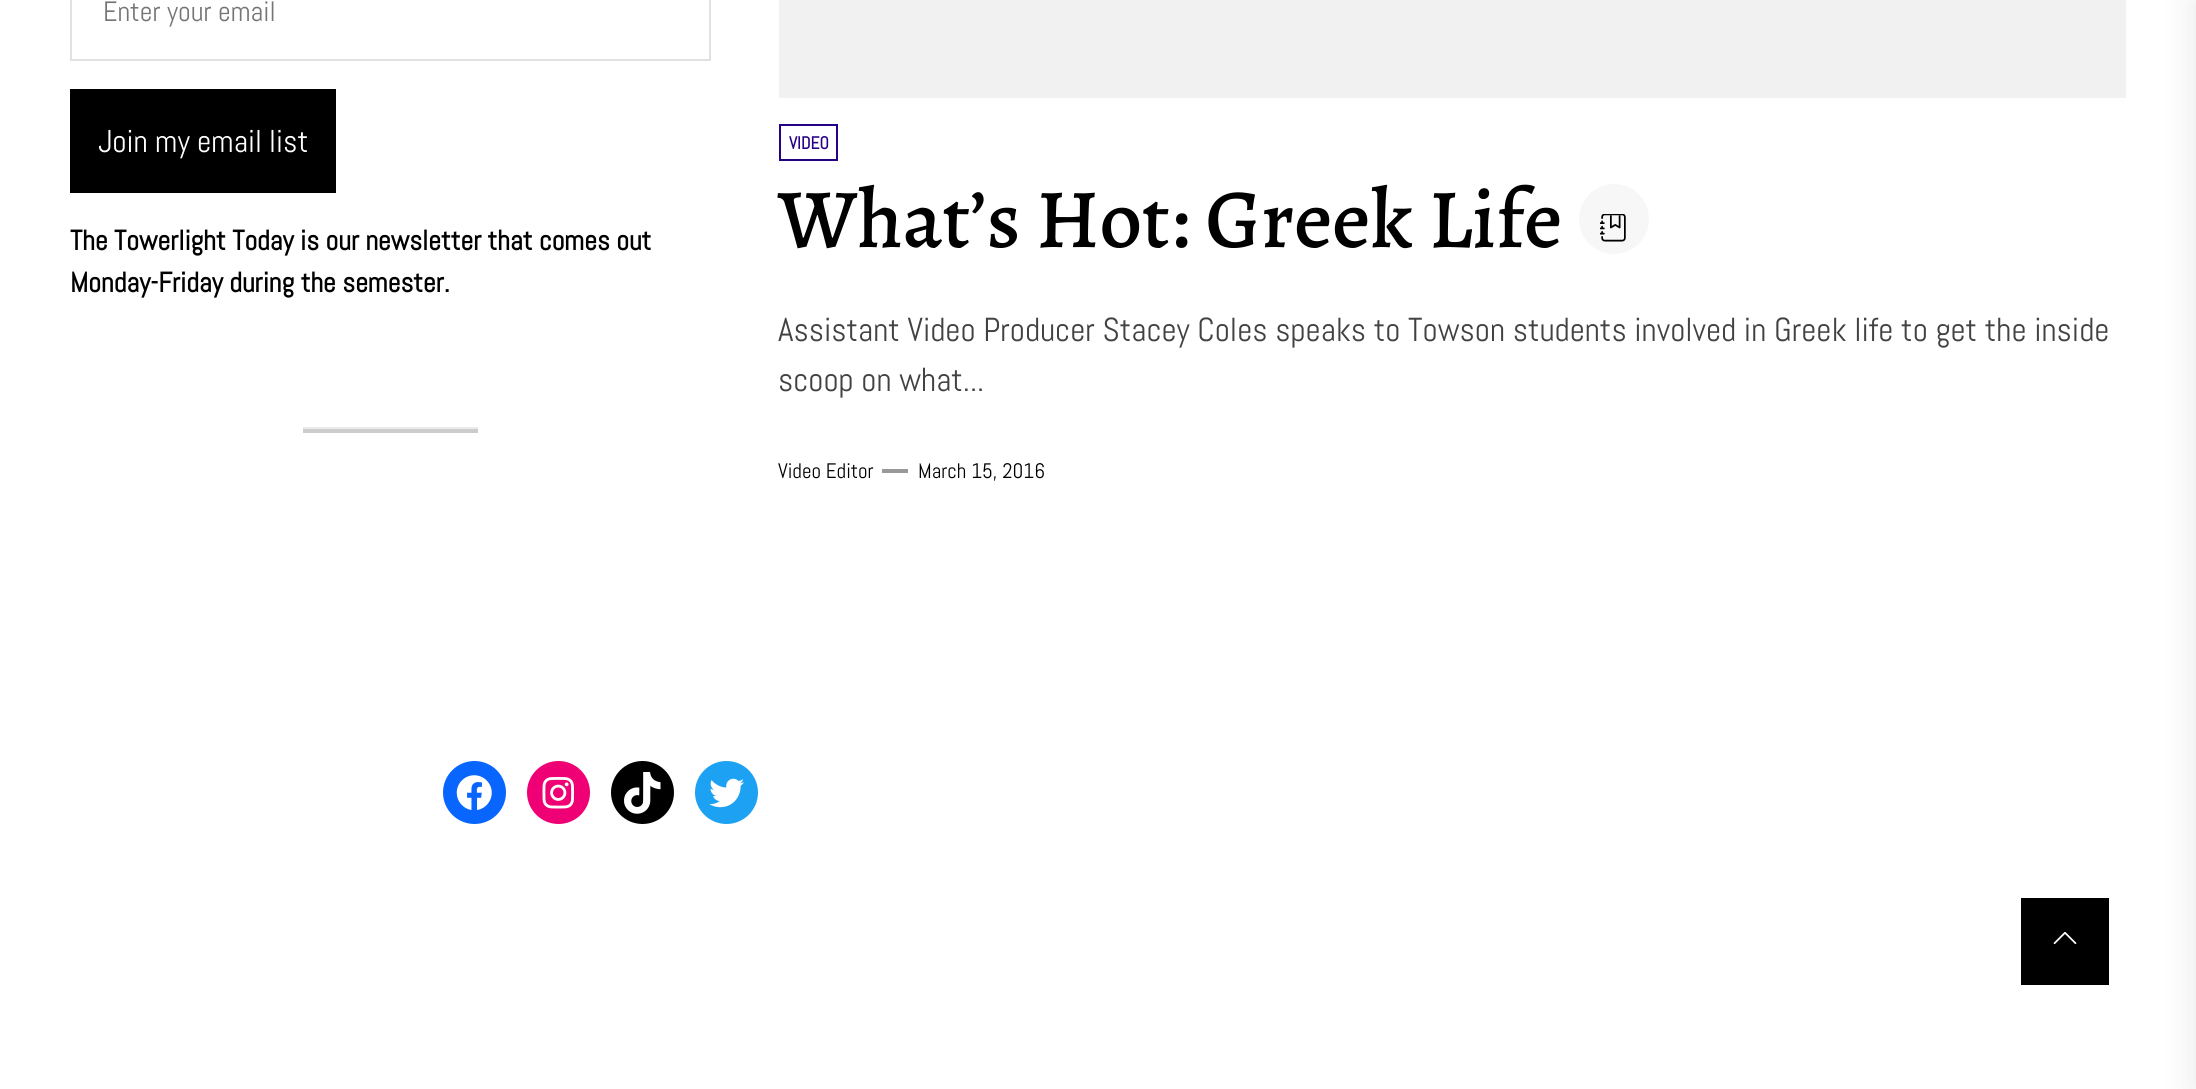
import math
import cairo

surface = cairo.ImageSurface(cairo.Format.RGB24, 2196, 1089)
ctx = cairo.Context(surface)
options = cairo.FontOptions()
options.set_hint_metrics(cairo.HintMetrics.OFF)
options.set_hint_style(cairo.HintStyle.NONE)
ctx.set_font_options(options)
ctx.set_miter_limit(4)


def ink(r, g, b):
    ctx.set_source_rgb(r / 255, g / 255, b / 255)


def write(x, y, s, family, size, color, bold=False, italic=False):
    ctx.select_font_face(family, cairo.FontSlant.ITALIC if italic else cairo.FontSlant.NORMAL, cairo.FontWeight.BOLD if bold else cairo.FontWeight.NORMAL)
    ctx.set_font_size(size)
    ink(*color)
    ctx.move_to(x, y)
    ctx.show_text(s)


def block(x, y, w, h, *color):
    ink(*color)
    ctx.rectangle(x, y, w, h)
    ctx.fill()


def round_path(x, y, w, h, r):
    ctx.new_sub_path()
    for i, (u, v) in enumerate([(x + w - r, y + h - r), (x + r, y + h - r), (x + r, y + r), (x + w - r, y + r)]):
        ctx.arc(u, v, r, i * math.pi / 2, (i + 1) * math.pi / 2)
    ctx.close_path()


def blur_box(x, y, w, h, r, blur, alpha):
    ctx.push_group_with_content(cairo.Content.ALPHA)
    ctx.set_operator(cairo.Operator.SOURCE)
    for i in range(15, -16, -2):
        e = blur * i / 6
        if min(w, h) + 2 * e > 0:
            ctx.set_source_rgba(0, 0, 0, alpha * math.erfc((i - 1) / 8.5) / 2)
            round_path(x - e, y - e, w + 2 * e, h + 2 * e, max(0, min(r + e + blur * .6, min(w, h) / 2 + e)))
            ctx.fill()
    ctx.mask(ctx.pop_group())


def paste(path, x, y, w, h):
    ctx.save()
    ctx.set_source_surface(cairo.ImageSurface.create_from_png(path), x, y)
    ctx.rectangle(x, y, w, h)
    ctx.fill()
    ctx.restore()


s1 = dict(family="Abel", size=28, color=(117, 117, 117))
s2 = dict(family="Abel", size=31.5, color=(255, 255, 255))
s3 = dict(family="Abel", size=28, color=(0, 0, 0), bold=True)
s4 = dict(family="Abel", size=17.5, color=(38, 0, 133), bold=True)
s5 = dict(family="Alegreya Medium", size=84, color=(0, 0, 0))
s6 = dict(family="Abel", size=33.25, color=(66, 66, 66))
s7 = dict(family="Abel", size=21, color=(0, 0, 0))

ink(255, 255, 255)
ctx.paint()
ctx.rectangle(71, -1, 639, 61)
ink(225, 225, 227)
ctx.stroke()
write(103, 21, "Enter your email", **s1)
block(70, 89, 266, 104, 0, 0, 0)
write(98, 152, "Join my email list", **s2)
write(70, 250, "The Towerlight Today is our newsletter that comes out", **s3)
write(70, 292, "Monday-Friday during the semester.", **s3)
block(303, 427, 175, 2, 235, 235, 235)
block(303, 429, 175, 4, 204, 204, 204)
block(779, 0, 1347, 98, 241, 241, 241)
ctx.rectangle(780, 125, 57, 35)
ink(38, 0, 133)
ctx.stroke()
write(789, 149, "VIDEO", **s4)
write(778, 247, "What’s Hot: Greek Life", **s5)
ink(247, 247, 247)
ctx.new_path()
ctx.arc(1614, 219, 35, 0, 2 * math.pi)
ctx.fill()
paste("pic1.png", 1600, 214, 26, 28)
write(778, 341, "Assistant Video Producer Stacey Coles speaks to Towson students involved in Greek life to get the inside", **s6)
write(778, 391, "scoop on what...", **s6)
write(778, 478, "Video Editor", **s7)
block(882, 469, 26, 4, 153, 153, 153)
write(918, 478, "March 15, 2016", **s7)
ink(0, 0, 0)
blur_box(2196, 0, 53, 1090, 0, 17.5, 0.1)
ink(8, 102, 255)
ctx.arc(474.5, 792.5, 31.5, 0, 2 * math.pi)
ctx.fill()
paste("pic2.png", 456, 775, 36, 35)
ink(240, 0, 117)
ctx.arc(558.5, 792.5, 31.5, 0, 2 * math.pi)
ctx.fill()
paste("pic3.png", 542, 777, 32, 32)
ink(0, 0, 0)
ctx.arc(642.5, 792.5, 31.5, 0, 2 * math.pi)
ctx.fill()
paste("pic4.png", 624, 772, 37, 42)
ink(29, 161, 242)
ctx.arc(726.5, 792.5, 31.5, 0, 2 * math.pi)
ctx.fill()
paste("pic5.png", 709, 778, 35, 30)
block(2021, 898, 88, 87, 0, 0, 0)
paste("pic6.png", 2053, 932, 24, 13)
surface.write_to_png("screenshot.png")
